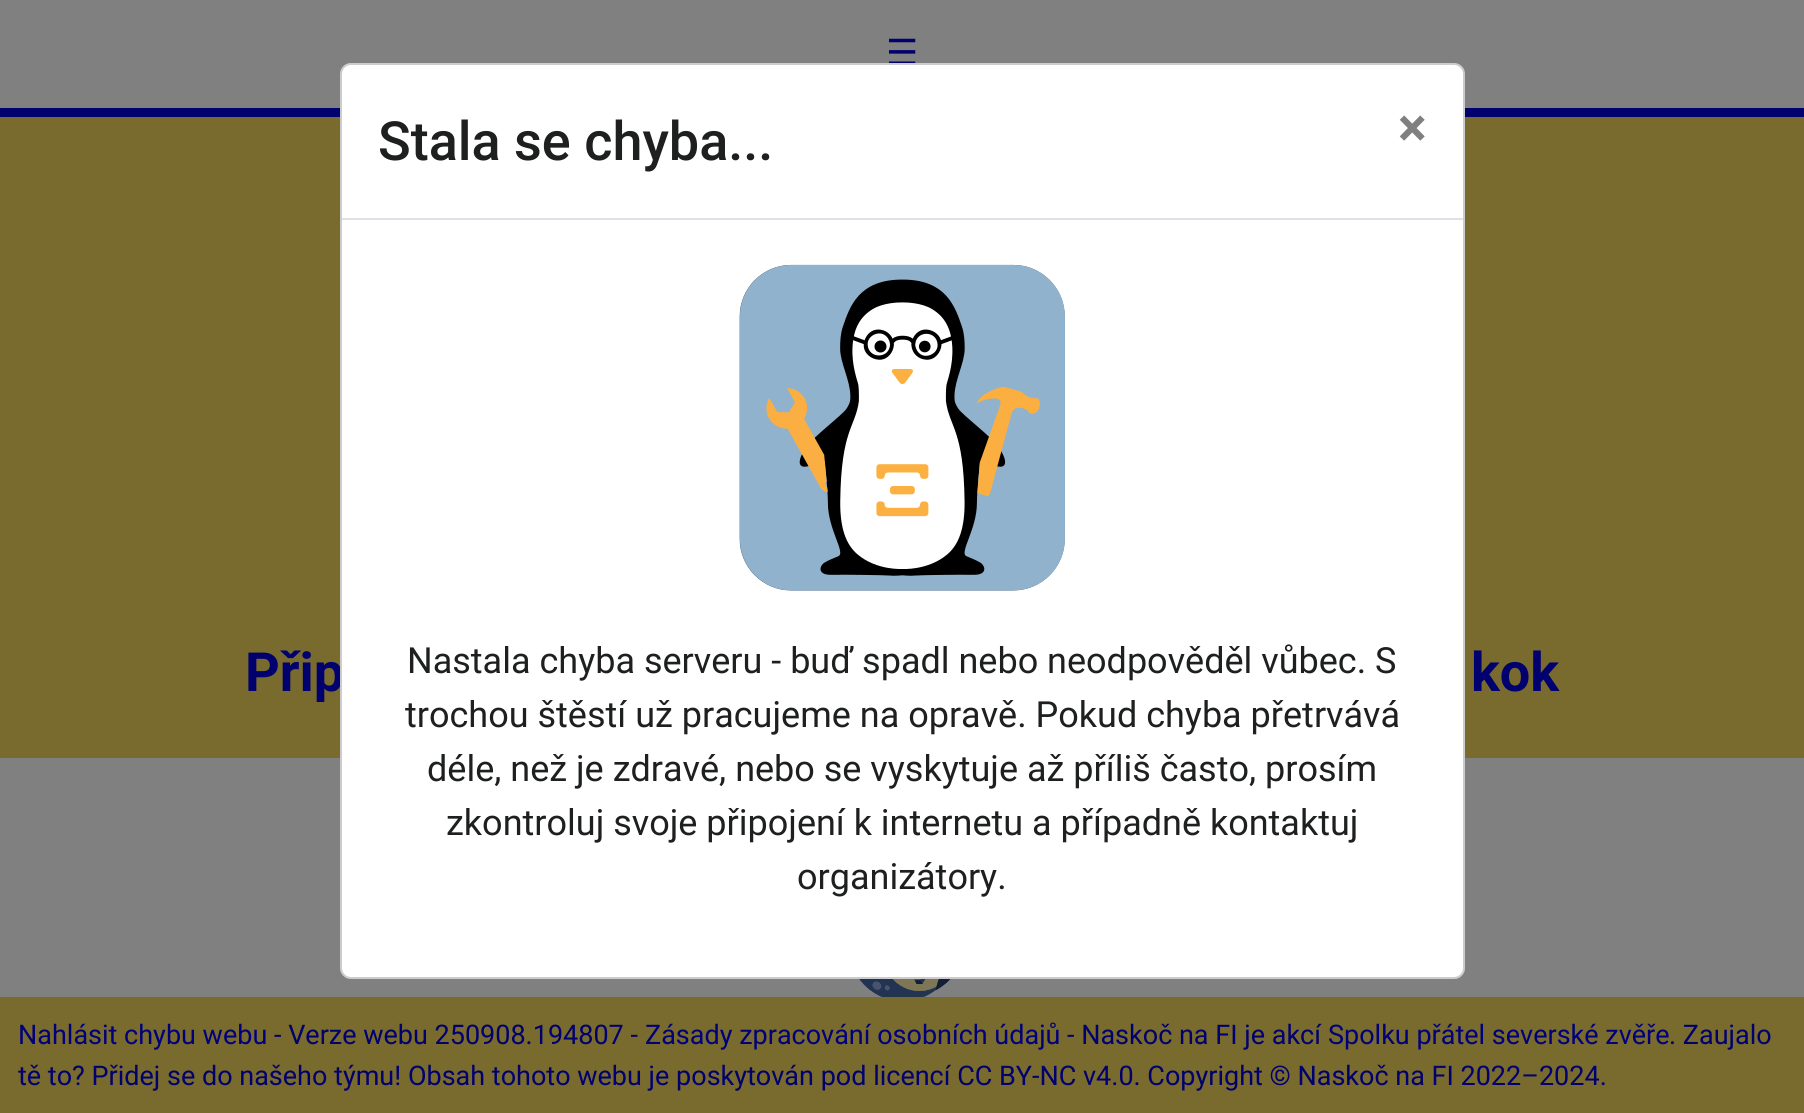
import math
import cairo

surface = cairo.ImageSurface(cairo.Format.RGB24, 1804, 1113)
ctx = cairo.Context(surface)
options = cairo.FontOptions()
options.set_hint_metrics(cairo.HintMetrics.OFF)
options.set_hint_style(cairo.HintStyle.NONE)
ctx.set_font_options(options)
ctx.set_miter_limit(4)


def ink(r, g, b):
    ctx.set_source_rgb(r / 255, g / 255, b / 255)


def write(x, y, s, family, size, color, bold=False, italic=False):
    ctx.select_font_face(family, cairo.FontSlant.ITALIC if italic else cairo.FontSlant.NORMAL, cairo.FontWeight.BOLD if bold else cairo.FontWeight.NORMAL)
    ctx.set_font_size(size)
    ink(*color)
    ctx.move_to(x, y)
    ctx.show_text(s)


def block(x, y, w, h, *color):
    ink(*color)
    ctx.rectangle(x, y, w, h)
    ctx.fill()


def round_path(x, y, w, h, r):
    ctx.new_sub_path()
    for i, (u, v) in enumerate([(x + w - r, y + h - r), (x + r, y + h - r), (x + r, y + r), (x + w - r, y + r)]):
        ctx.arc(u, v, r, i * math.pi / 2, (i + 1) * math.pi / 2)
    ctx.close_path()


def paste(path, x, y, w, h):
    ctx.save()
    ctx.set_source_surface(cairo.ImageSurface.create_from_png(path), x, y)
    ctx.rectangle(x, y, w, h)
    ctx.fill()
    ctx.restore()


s1 = dict(family="DejaVu Sans", size=36, color=(0, 0, 110))
s2 = dict(family="Roboto", size=54, color=(0, 0, 110), bold=True)
s3 = dict(family="Roboto", size=27, color=(0, 0, 123))
s4 = dict(family="Roboto", size=27, color=(0, 0, 110))
s5 = dict(family="Roboto Medium", size=54, color=(30, 31, 31))
s6 = dict(family="Roboto", size=54, color=(128, 128, 128), bold=True)
s7 = dict(family="Roboto", size=36, color=(30, 31, 31))

ink(128, 128, 128)
ctx.paint()
write(886, 65, "☰", **s1)
block(0, 108, 1804, 9, 0, 0, 110)
block(0, 117, 1804, 641, 121, 106, 46)
write(245, 691, "Přip", **s2)
write(1471, 691, "kok", **s2)
paste("pic1.png", 859, 979, 92, 18)
block(0, 997, 1804, 116, 121, 106, 46)
write(18, 1044, "Nahlásit chybu webu", **s3)
write(274, 1044, "- Verze webu 250908.194807 -", **s4)
write(645, 1044, "Zásady zpracování osobních údajů", **s3)
write(1067, 1044, "- Naskoč na FI je akcí", **s4)
write(1328, 1044, "Spolku přátel severské zvěře", **s3)
write(1669, 1044, ". Zaujalo", **s4)
write(18, 1085, "tě to? Přidej se do našeho týmu! Obsah tohoto webu je poskytován pod licencí CC BY-NC v4.0. Copyright © Naskoč na FI 2022–2024.", **s4)
ink(255, 255, 255)
round_path(340, 63, 1125, 916, 11)
ctx.fill()
round_path(341, 64, 1123, 914, 10)
ctx.set_source_rgba(0, 0, 0, 0.2)
ctx.stroke()
block(342, 218, 1121, 2, 222, 226, 230)
write(378, 160, "Stala se chyba...", **s5)
write(1398, 146, "×", **s6)
paste("pic2.png", 739, 264, 326, 327)
write(407, 673, "Nastala chyba serveru - buď spadl nebo neodpověděl vůbec. S", **s7)
write(405, 727, "trochou štěstí už pracujeme na opravě. Pokud chyba přetrvává", **s7)
write(427, 781, "déle, než je zdravé, nebo se vyskytuje až příliš často, prosím", **s7)
write(446, 835, "zkontroluj svoje připojení k internetu a případně kontaktuj", **s7)
write(797, 889, "organizátory.", **s7)
surface.write_to_png("screenshot.png")
